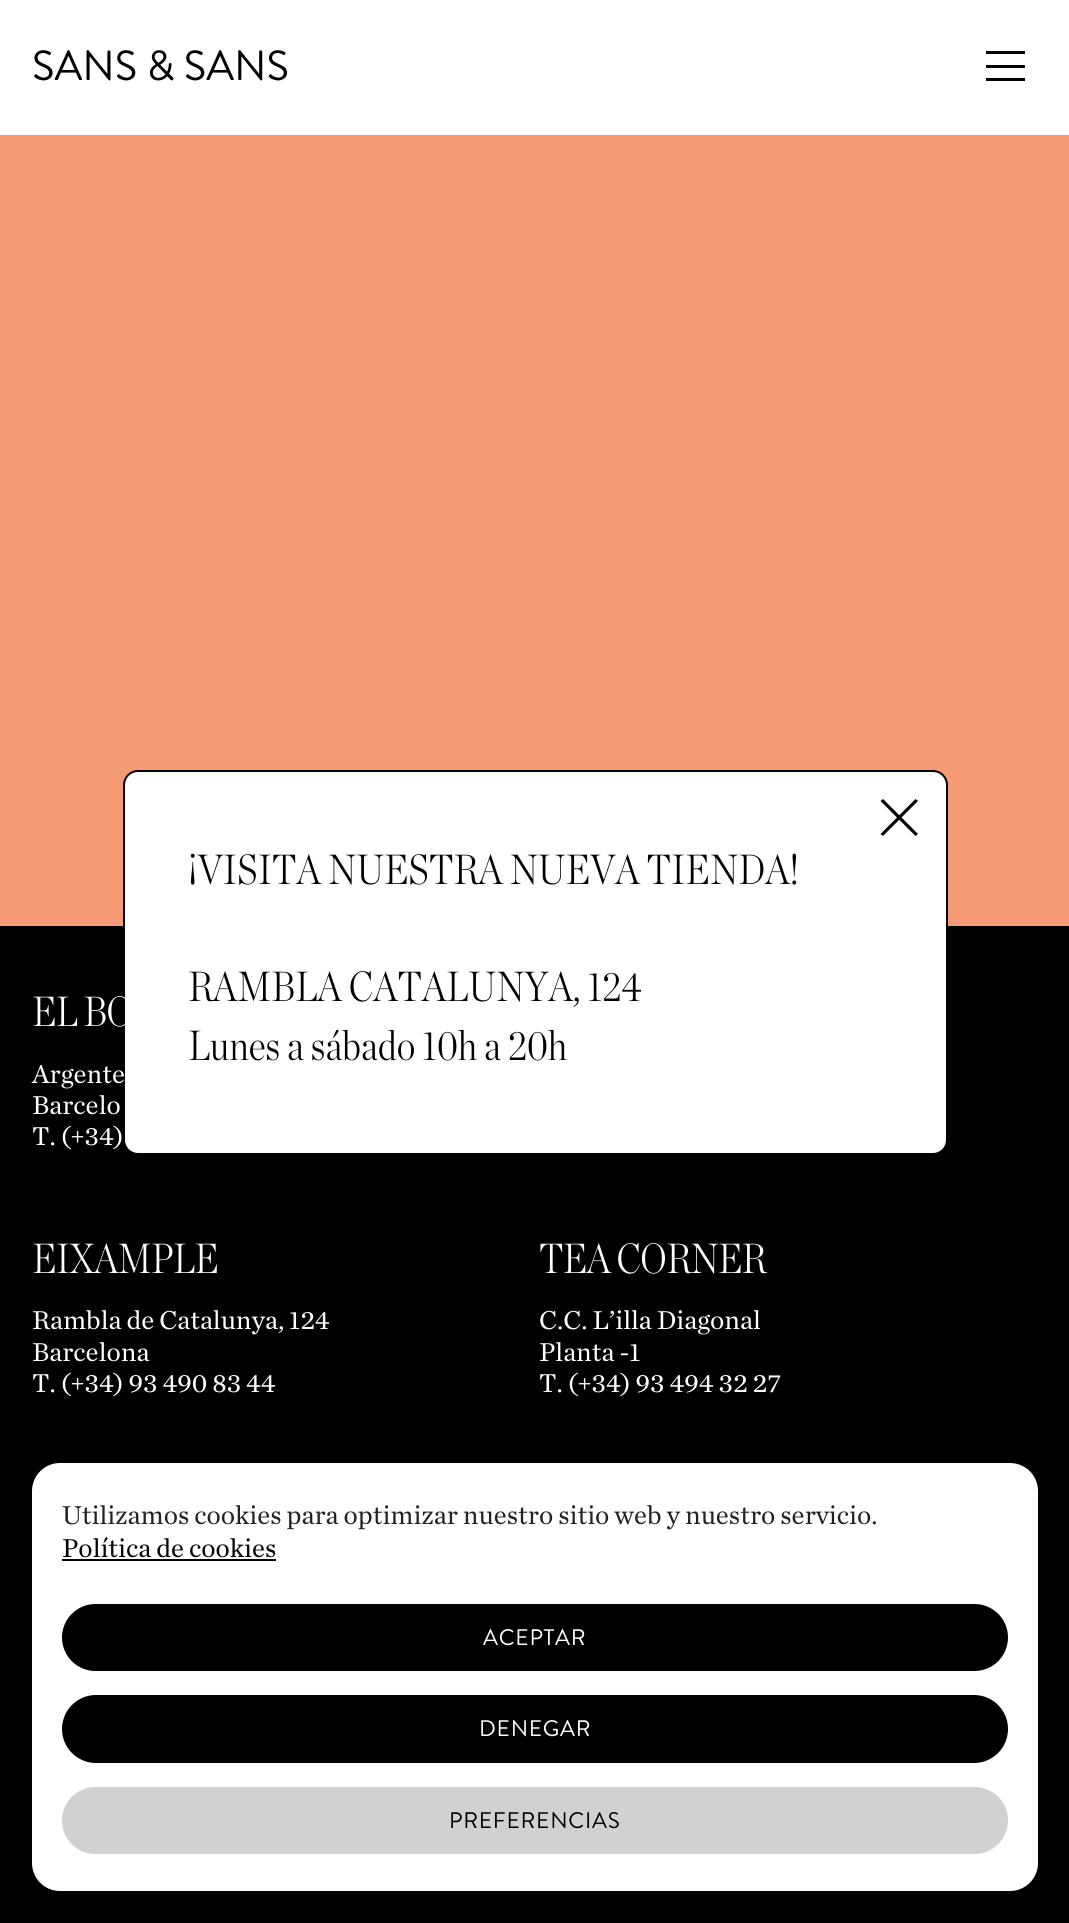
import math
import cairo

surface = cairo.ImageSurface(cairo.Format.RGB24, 1069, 1923)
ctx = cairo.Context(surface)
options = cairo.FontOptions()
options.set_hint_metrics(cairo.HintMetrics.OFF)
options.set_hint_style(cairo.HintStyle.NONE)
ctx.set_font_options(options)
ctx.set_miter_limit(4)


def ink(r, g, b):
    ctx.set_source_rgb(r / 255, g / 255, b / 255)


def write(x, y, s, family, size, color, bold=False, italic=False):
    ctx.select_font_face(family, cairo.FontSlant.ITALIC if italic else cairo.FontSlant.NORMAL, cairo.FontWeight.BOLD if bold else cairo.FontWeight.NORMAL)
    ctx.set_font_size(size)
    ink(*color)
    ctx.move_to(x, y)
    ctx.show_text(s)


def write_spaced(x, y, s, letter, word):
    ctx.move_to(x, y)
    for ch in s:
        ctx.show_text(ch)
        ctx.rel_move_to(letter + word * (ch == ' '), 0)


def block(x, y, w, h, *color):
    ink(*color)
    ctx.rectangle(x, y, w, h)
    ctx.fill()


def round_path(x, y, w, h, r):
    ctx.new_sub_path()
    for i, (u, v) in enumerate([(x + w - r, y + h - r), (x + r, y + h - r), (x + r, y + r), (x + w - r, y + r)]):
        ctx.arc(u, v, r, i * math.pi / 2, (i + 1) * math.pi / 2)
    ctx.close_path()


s1 = dict(family="Brandon Grotesque", size=42, color=(0, 0, 0))
s2 = dict(family="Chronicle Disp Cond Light", size=42, color=(0, 0, 0))
s3 = dict(family="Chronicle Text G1", size=27, color=(255, 255, 255))
s4 = dict(family="Chronicle Text G1", size=27, color=(34, 34, 34))
s5 = dict(family="Chronicle Text G1", size=27, color=(0, 0, 0))

ink(0, 0, 0)
ctx.paint()
block(0, 0, 1069, 135, 255, 255, 255)
write(32, 80, "SANS & SANS", **s1)
block(986, 65, 39, 3, 0, 0, 0)
block(986, 51, 39, 3, 0, 0, 0)
block(986, 78, 39, 3, 0, 0, 0)
block(0, 135, 1069, 791, 244, 155, 118)
ink(255, 255, 255)
round_path(124, 771, 823, 383, 14)
ctx.fill_preserve()
ink(0, 0, 0)
ctx.stroke()
ctx.new_path()
ctx.move_to(915.5, 799)
ctx.line_to(918, 801)
ctx.line_to(883, 836)
ctx.line_to(880.5, 834)
ctx.close_path()
ctx.fill()
ctx.new_path()
ctx.move_to(880.5, 801)
ctx.line_to(883, 799)
ctx.line_to(918, 834)
ctx.line_to(915.5, 836)
ctx.close_path()
ctx.fill()
write(188, 884, "¡VISITA NUESTRA NUEVA TIENDA!", **s2)
write(188, 1001, "RAMBLA CATALUNYA, 124", **s2)
write(188, 1060, "Lunes a sábado 10h a 20h", **s2)
ink(255, 255, 255)
write_spaced(32, 1026, "EL BO", -0.75, 0)
write(32, 1083, "Argente", **s3)
write(32, 1114, "Barcelo", **s3)
write(32, 1145, "T. (+34)", **s3)
ctx.select_font_face("Chronicle Disp Cond Light")
ctx.set_font_size(42)
write_spaced(32, 1273, "EIXAMPLE", -0.75, 0)
write(32, 1329, "Rambla de Catalunya, 124", **s3)
write(32, 1361, "Barcelona", **s3)
write(32, 1392, "T. (+34) 93 490 83 44", **s3)
ctx.select_font_face("Chronicle Disp Cond Light")
ctx.set_font_size(42)
write_spaced(539, 1273, "TEA CORNER", -0.75, 0)
write(539, 1329, "C.C. L’illa Diagonal", **s3)
write(539, 1361, "Planta -1", **s3)
write(539, 1392, "T. (+34) 93 494 32 27", **s3)
round_path(31, 1462, 1008, 430, 29)
ctx.fill_preserve()
ink(0, 0, 0)
ctx.stroke()
write(62, 1524, "Utilizamos cookies para optimizar nuestro sitio web y nuestro servicio.", **s4)
write(62, 1557, "Política de cookies", **s5)
block(62, 1559, 214, 2, 0, 0, 0)
round_path(63, 1605, 944, 65, 32.5)
ctx.fill_preserve()
ctx.stroke()
ctx.select_font_face("Brandon Grotesque")
ctx.set_font_size(22.5)
ink(255, 255, 255)
write_spaced(483, 1645, "ACEPTAR", 0.75, 0)
ink(0, 0, 0)
round_path(63, 1696, 944, 66, 33)
ctx.fill_preserve()
ctx.stroke()
ink(255, 255, 255)
write_spaced(479, 1736, "DENEGAR", 0.75, 0)
ink(209, 209, 209)
round_path(63, 1788, 944, 65, 32.5)
ctx.fill_preserve()
ctx.stroke()
ink(0, 0, 0)
write_spaced(449, 1828, "PREFERENCIAS", 0.75, 0)
surface.write_to_png("screenshot.png")
